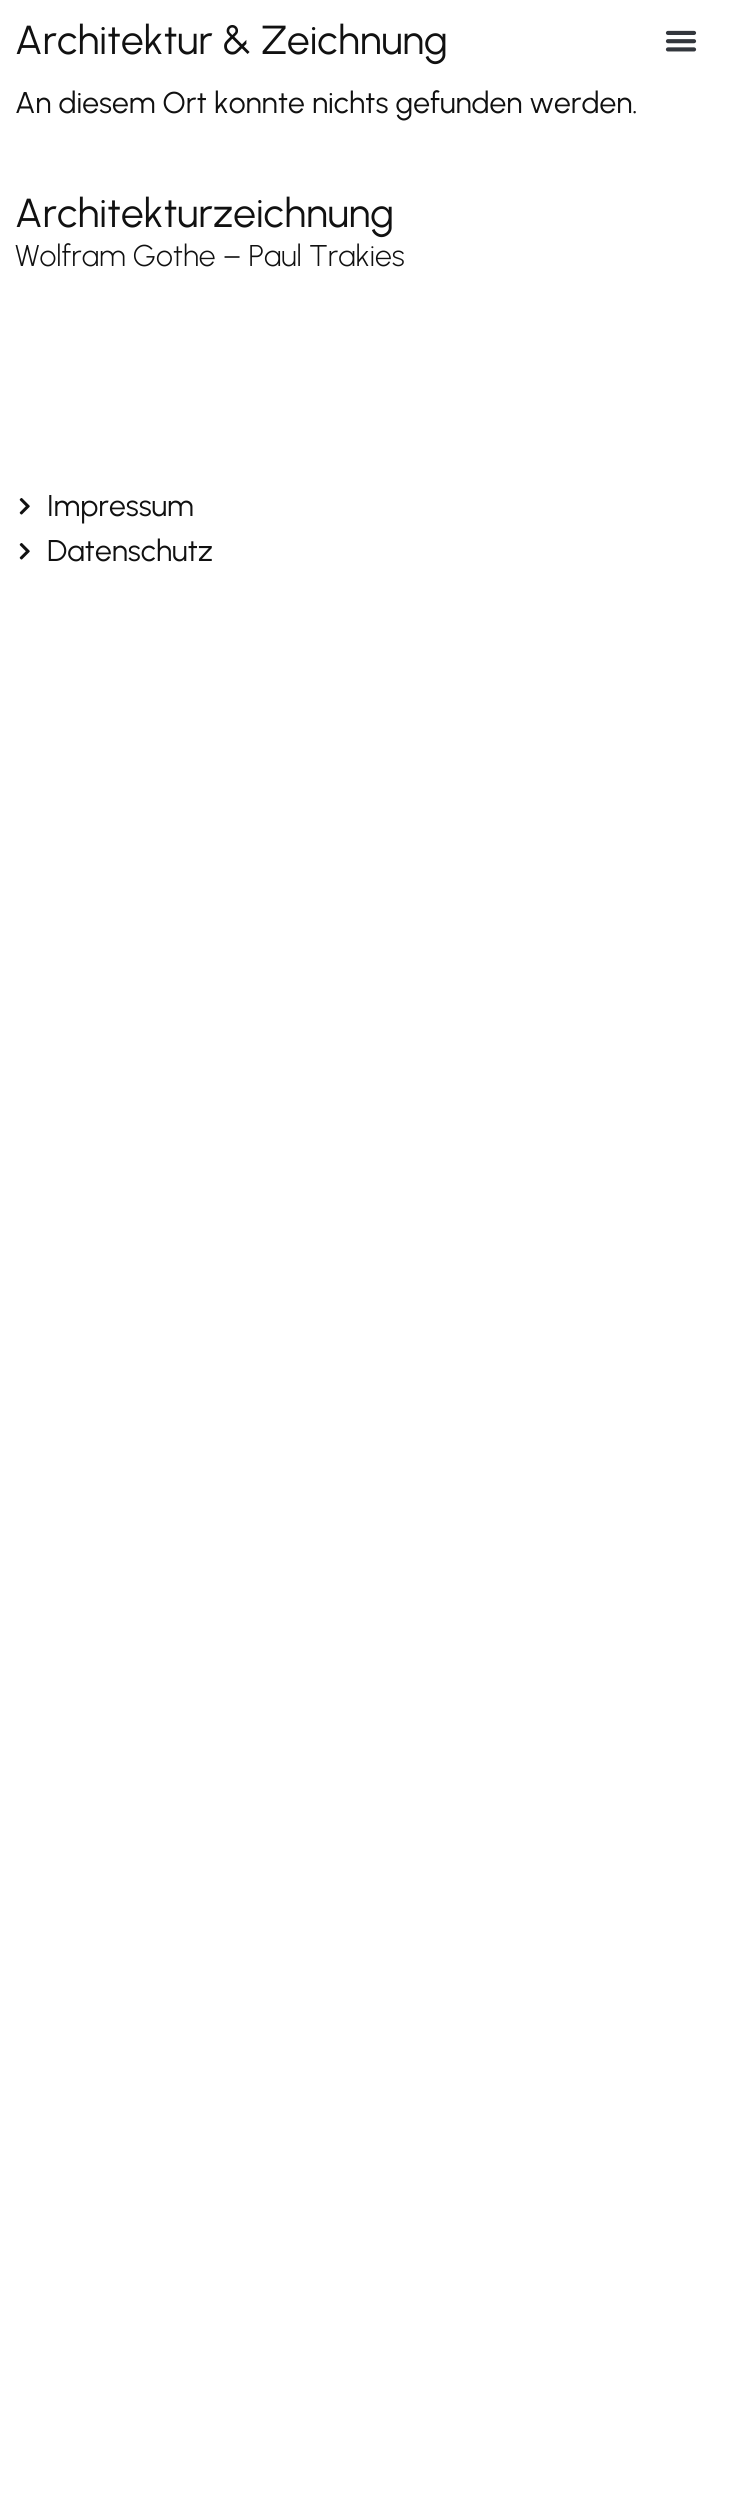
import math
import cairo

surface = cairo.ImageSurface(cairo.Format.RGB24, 742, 2518)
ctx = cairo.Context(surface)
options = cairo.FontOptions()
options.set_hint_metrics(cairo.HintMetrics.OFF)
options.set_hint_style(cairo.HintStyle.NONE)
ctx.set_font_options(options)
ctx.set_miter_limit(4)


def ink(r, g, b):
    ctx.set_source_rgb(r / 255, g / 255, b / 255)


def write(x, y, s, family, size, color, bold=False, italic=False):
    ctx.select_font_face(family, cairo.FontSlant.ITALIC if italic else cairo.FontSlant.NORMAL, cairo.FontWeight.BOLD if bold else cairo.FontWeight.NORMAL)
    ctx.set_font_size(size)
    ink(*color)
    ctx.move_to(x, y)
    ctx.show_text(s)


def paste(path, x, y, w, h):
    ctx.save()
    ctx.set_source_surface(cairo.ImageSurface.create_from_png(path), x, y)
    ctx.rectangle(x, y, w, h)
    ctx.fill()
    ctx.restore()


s1 = dict(family="Urbanist", size=40.5, color=(17, 17, 17))
s2 = dict(family="Urbanist", size=30, color=(17, 17, 17))
s3 = dict(family="Urbanist Light", size=30, color=(17, 17, 17))

ink(255, 255, 255)
ctx.paint()
write(15, 54, "Architektur & Zeichnung", **s1)
paste("pic1.png", 665, 30, 32, 22)
write(15, 113, "An diesem Ort konnte nichts gefunden werden.", **s2)
write(15, 227, "Architekturzeichnung", **s1)
write(15, 266, "Wolfram Gothe – Paul Trakies", **s3)
paste("pic2.png", 19, 498, 11, 17)
write(47, 516, "Impressum", **s2)
paste("pic2.png", 19, 543, 11, 17)
write(47, 561, "Datenschutz", **s2)
surface.write_to_png("screenshot.png")
